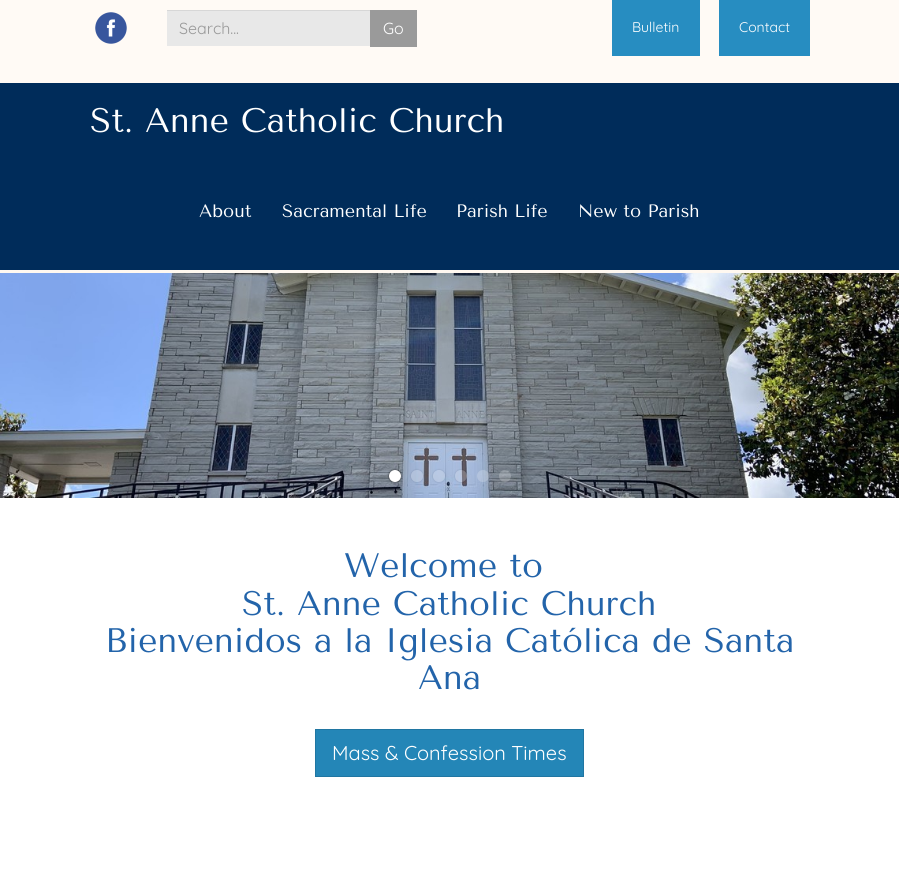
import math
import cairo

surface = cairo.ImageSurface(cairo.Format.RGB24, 899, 877)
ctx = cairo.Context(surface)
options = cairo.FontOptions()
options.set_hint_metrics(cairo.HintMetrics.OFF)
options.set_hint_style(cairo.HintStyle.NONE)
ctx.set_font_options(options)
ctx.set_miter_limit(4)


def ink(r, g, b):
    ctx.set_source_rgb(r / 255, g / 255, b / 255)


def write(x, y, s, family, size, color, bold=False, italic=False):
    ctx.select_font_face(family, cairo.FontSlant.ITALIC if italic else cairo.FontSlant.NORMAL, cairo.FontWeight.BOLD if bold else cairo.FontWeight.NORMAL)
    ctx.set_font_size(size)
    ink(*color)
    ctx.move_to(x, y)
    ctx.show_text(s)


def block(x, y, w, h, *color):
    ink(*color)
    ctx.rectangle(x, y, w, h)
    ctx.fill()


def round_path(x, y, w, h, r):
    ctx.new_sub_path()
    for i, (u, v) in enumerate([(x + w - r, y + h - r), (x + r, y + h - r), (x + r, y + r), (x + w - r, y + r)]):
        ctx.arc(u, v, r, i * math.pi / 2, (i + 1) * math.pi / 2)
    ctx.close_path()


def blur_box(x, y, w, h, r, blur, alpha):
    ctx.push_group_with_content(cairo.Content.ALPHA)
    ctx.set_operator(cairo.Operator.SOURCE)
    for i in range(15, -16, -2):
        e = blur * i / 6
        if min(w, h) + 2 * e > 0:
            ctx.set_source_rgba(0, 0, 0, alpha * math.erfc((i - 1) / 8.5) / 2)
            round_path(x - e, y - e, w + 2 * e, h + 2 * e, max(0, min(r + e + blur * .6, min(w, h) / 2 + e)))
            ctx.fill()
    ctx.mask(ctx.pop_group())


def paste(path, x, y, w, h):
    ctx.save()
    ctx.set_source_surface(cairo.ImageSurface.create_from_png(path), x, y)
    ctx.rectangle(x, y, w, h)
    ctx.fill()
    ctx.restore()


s1 = dict(family="Quicksand", size=16, color=(153, 153, 153))
s2 = dict(family="Quicksand", size=16, color=(255, 255, 255))
s3 = dict(family="Quicksand", size=14, color=(255, 255, 255))
s4 = dict(family="Tenor Sans", size=34, color=(255, 255, 255))
s5 = dict(family="Tenor Sans", size=18, color=(255, 255, 255))
s6 = dict(family="Tenor Sans", size=34, color=(35, 100, 170))
s7 = dict(family="Quicksand", size=20, color=(255, 255, 255))

ink(255, 250, 245)
ctx.paint()
paste("pic1.png", 95, 12, 32, 32)
block(167, 11, 203, 35, 232, 232, 232)
block(167, 10, 203, 1, 215, 215, 215)
write(179, 34, "Search...", **s1)
block(370, 10, 47, 37, 154, 154, 154)
write(383, 34, "Go", **s2)
block(612, 0, 88, 56, 39, 141, 193)
write(632, 32, "Bulletin", **s3)
block(719, 0, 91, 56, 39, 141, 193)
write(739, 32, "Contact", **s3)
block(0, 83, 899, 187, 0, 44, 90)
write(90, 132, "St. Anne Catholic Church", **s4)
write(199, 217, "About", **s5)
write(282, 217, "Sacramental Life", **s5)
write(456, 217, "Parish Life", **s5)
write(578, 217, "New to Parish", **s5)
block(0, 270, 899, 3, 255, 248, 240)
block(0, 498, 899, 379, 255, 255, 255)
paste("pic2.png", 0, 273, 899, 225)
ink(0, 0, 0)
blur_box(389, 470, 12, 12, 6, 1, 0.8)
ink(255, 255, 255)
ctx.arc(395, 476, 6, 0, 2 * math.pi)
ctx.fill()
ctx.save()
ctx.set_fill_rule(cairo.FillRule.EVEN_ODD)
ctx.new_path()
ctx.move_to(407, 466)
ctx.line_to(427, 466)
ctx.line_to(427, 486)
ctx.line_to(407, 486)
ctx.close_path()
ctx.move_to(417, 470)
ctx.curve_to(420.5, 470, 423, 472.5, 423, 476)
ctx.curve_to(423, 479.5, 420.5, 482, 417, 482)
ctx.curve_to(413.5, 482, 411, 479.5, 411, 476)
ctx.curve_to(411, 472.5, 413.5, 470, 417, 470)
ctx.close_path()
ctx.clip()
ink(0, 0, 0)
blur_box(411, 470, 12, 12, 6, 1, 0.16)
ctx.restore()
ctx.set_source_rgba(1, 1, 1, 0.2)
ctx.arc(417, 476, 6, 0, 2 * math.pi)
ctx.fill()
ctx.save()
ctx.set_fill_rule(cairo.FillRule.EVEN_ODD)
ctx.new_path()
ctx.move_to(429, 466)
ctx.line_to(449, 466)
ctx.line_to(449, 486)
ctx.line_to(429, 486)
ctx.close_path()
ctx.move_to(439, 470)
ctx.curve_to(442.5, 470, 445, 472.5, 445, 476)
ctx.curve_to(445, 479.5, 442.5, 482, 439, 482)
ctx.curve_to(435.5, 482, 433, 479.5, 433, 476)
ctx.curve_to(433, 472.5, 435.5, 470, 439, 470)
ctx.close_path()
ctx.clip()
ink(0, 0, 0)
blur_box(433, 470, 12, 12, 6, 1, 0.16)
ctx.restore()
ctx.arc(439, 476, 6, 0, 2 * math.pi)
ctx.fill()
ctx.save()
ctx.set_fill_rule(cairo.FillRule.EVEN_ODD)
ctx.new_path()
ctx.move_to(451, 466)
ctx.line_to(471, 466)
ctx.line_to(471, 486)
ctx.line_to(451, 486)
ctx.close_path()
ctx.move_to(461, 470)
ctx.curve_to(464.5, 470, 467, 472.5, 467, 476)
ctx.curve_to(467, 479.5, 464.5, 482, 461, 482)
ctx.curve_to(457.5, 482, 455, 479.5, 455, 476)
ctx.curve_to(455, 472.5, 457.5, 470, 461, 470)
ctx.close_path()
ctx.clip()
ink(0, 0, 0)
blur_box(455, 470, 12, 12, 6, 1, 0.16)
ctx.restore()
ctx.arc(461, 476, 6, 0, 2 * math.pi)
ctx.fill()
ctx.arc(483, 476, 6, 0, 2 * math.pi)
ctx.fill()
ctx.arc(505, 476, 6, 0, 2 * math.pi)
ctx.fill()
write(344, 577, "Welcome to", **s6)
write(242, 615, "St. Anne Catholic Church", **s6)
write(105, 652, "Bienvenidos a la Iglesia Católica de Santa", **s6)
write(418, 689, "Ana", **s6)
ink(36, 134, 183)
ctx.rectangle(315.5, 729.5, 268, 47)
ctx.fill_preserve()
ink(32, 118, 162)
ctx.set_line_width(1)
ctx.stroke()
write(332, 760, "Mass & Confession Times", **s7)
surface.write_to_png("screenshot.png")
